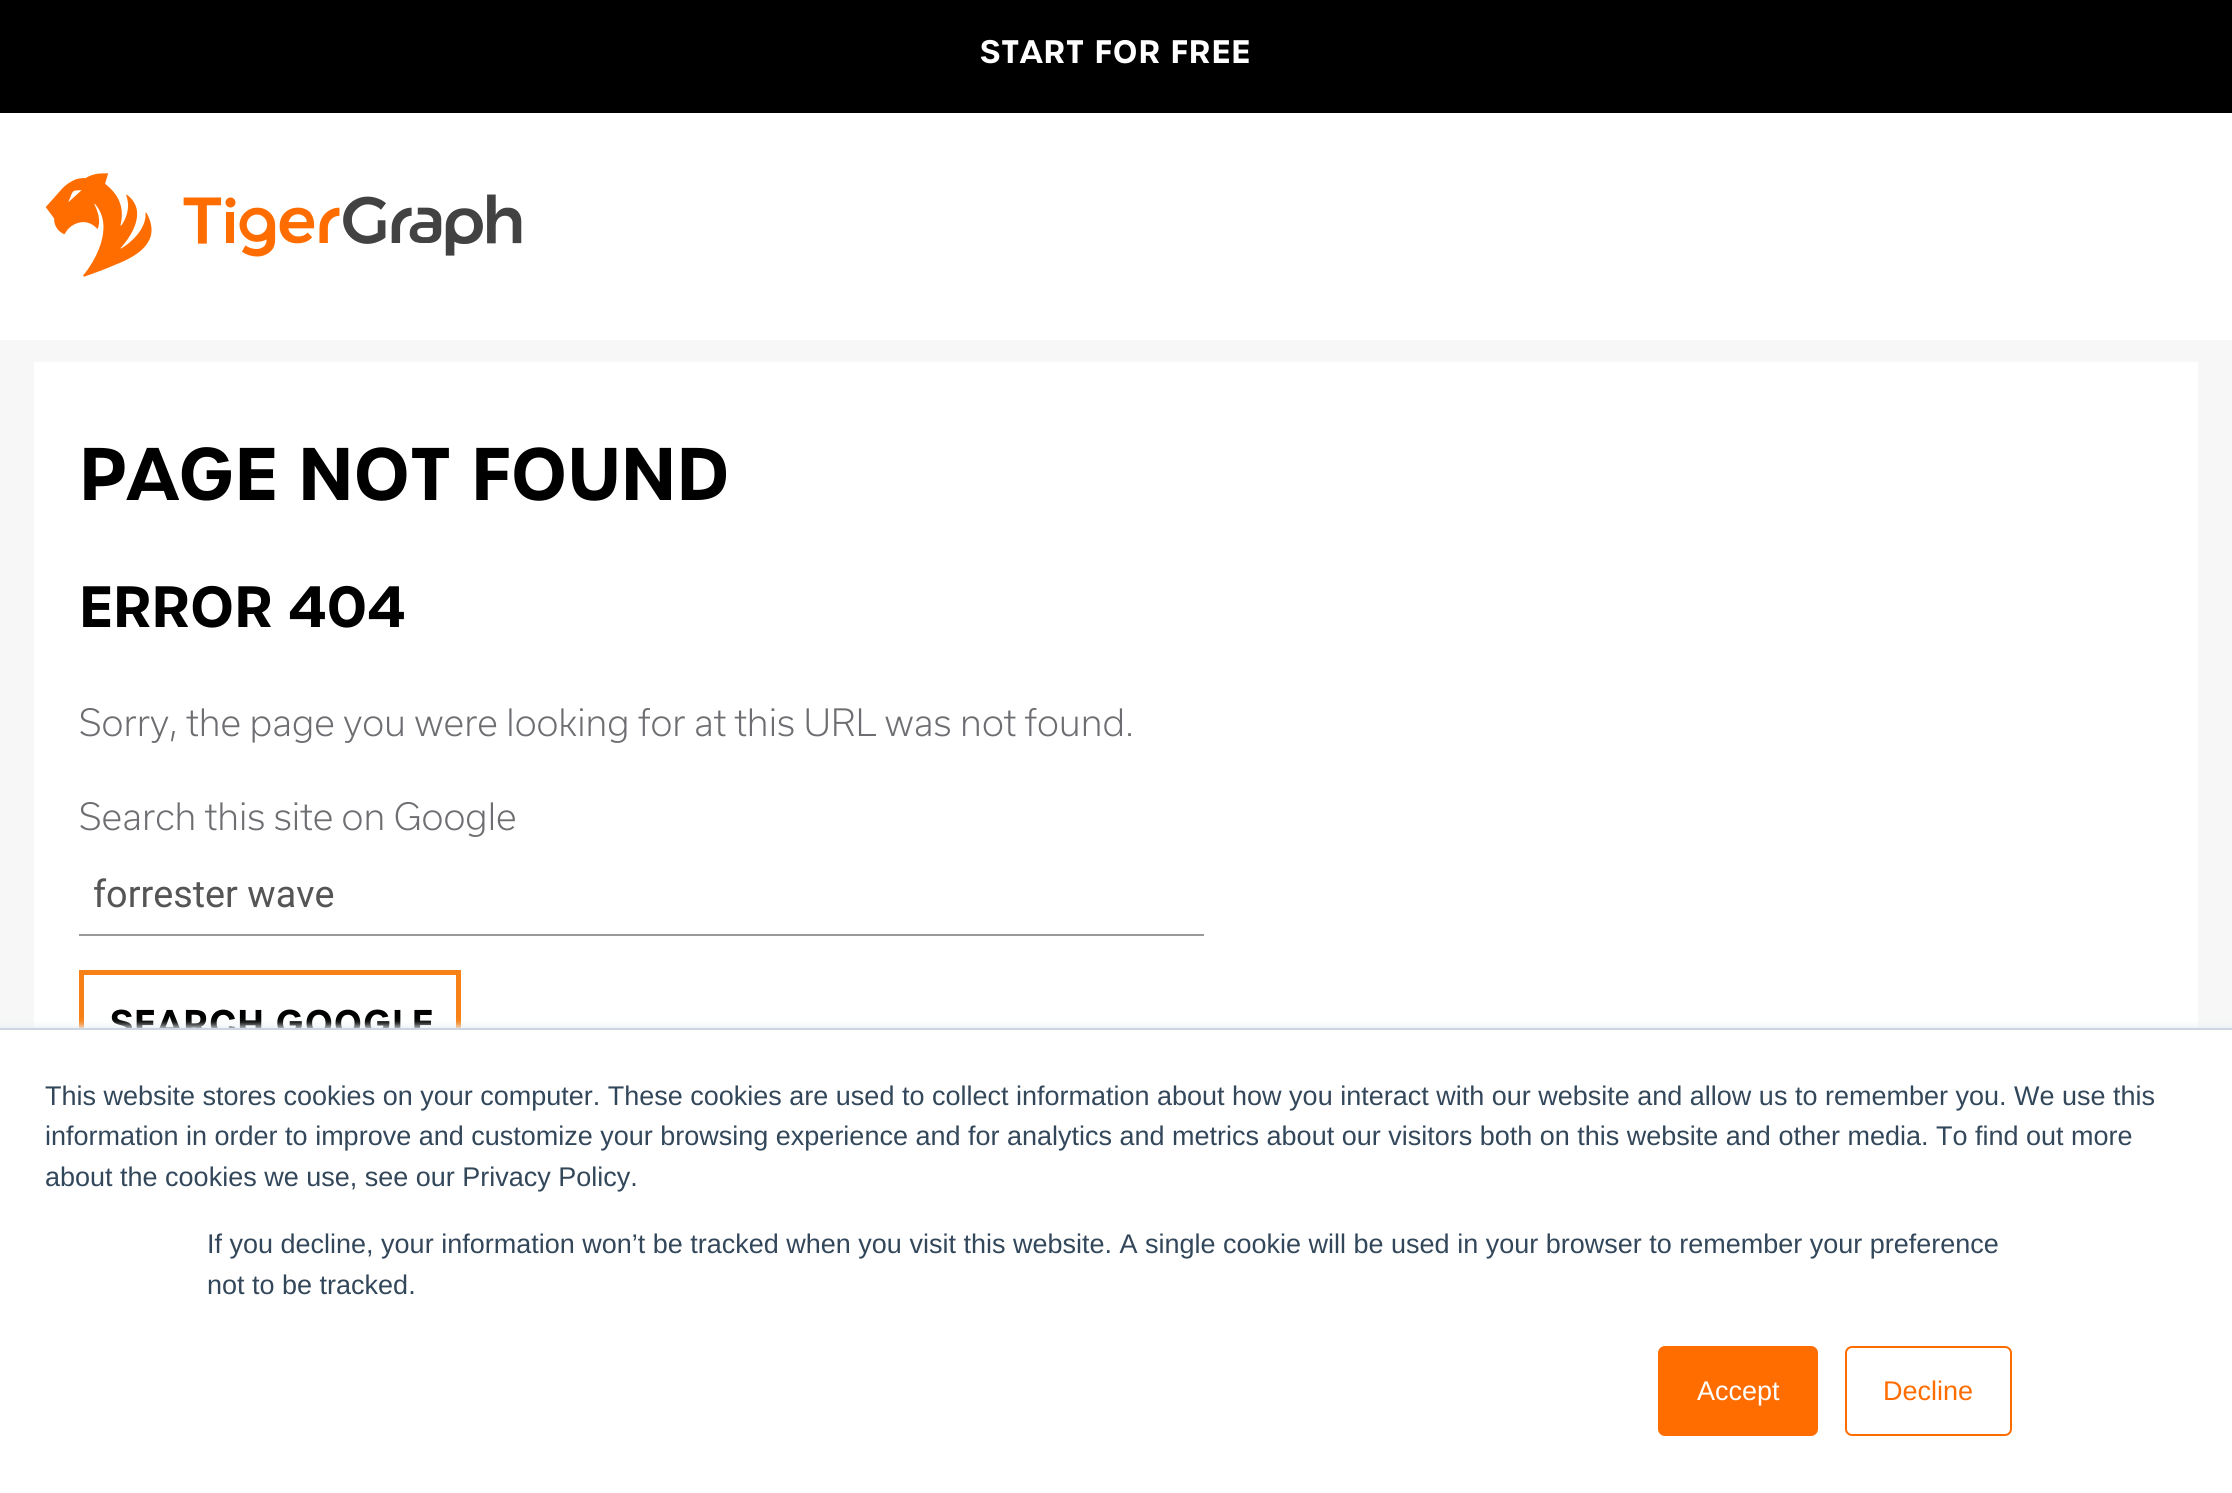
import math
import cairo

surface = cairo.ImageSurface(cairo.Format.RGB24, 2232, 1493)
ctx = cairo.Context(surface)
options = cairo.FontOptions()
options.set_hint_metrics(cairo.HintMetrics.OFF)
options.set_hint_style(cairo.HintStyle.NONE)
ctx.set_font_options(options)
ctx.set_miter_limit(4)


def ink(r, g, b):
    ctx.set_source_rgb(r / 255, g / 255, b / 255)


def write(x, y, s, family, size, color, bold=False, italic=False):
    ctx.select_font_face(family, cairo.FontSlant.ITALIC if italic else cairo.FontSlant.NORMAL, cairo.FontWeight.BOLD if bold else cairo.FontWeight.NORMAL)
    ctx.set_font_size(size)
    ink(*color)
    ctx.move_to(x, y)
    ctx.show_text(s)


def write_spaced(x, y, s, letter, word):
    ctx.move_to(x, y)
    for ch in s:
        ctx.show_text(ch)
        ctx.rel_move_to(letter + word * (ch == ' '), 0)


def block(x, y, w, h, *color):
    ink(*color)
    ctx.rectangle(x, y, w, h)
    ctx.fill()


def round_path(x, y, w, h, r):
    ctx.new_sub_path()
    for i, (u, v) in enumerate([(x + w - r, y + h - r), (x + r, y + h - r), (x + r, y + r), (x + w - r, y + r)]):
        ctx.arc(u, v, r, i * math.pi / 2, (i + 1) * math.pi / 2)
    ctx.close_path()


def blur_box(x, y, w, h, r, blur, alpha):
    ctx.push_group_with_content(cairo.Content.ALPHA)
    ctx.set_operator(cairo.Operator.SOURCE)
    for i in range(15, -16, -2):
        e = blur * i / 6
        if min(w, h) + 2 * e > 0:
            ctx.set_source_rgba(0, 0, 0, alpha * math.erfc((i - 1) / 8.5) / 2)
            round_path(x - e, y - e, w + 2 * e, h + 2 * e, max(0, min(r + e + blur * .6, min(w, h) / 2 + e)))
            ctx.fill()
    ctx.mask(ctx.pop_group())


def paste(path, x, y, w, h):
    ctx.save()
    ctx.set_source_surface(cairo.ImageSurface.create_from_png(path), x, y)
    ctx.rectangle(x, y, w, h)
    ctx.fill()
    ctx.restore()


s1 = dict(family="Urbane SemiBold", size=72, color=(0, 0, 0))
s2 = dict(family="Urbane SemiBold", size=56.25, color=(0, 0, 0))
s3 = dict(family="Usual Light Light", size=36, color=(109, 110, 113))
s4 = dict(family="Roboto", size=37.75, color=(85, 85, 85))
s5 = dict(family="Liberation Sans", size=27, color=(51, 71, 91))
s6 = dict(family="Liberation Sans", size=27, color=(255, 255, 255))
s7 = dict(family="Liberation Sans", size=27, color=(255, 109, 0))

ink(255, 255, 255)
ctx.paint()
block(0, 0, 2232, 113, 0, 0, 0)
ctx.select_font_face("Urbane SemiBold")
ctx.set_font_size(31.5)
ink(255, 255, 255)
write_spaced(980, 63, "START FOR FREE", 0.9, 0)
paste("pic1.png", 45, 173, 477, 104)
block(0, 340, 2232, 688, 247, 247, 247)
block(34, 362, 2164, 666, 255, 255, 255)
write(79, 500, "PAGE NOT FOUND", **s1)
write(79, 627, "ERROR 404", **s2)
write(79, 736, "Sorry, the page you were looking for at this URL was not found.", **s3)
write(79, 830, "Search this site on Google", **s3)
block(79, 934, 1125, 2, 153, 153, 153)
write(93, 907, "forrester wave", **s4)
ctx.rectangle(81.5, 972.5, 377, 98)
ink(247, 129, 22)
ctx.set_line_width(5)
ctx.stroke()
ctx.select_font_face("Urbane SemiBold")
ctx.set_font_size(36)
ink(0, 0, 0)
write_spaced(110, 1036, "SEARCH GOOGLE", 0.9, 0)
ink(234, 240, 246)
blur_box(0, 1026, 2232, 466, 0, 3.5, 1)
block(0, 1030, 2232, 463, 255, 255, 255)
block(0, 1028, 2232, 2, 203, 214, 226)
write(45, 1105, "This website stores cookies on your computer. These cookies are used to collect information about how you interact with our website and allow us to remember you. We use this", **s5)
write(45, 1145, "information in order to improve and customize your browsing experience and for analytics and metrics about our visitors both on this website and other media. To find out more", **s5)
write(45, 1186, "about the cookies we use, see our Privacy Policy.", **s5)
write(207, 1253, "If you decline, your information won’t be tracked when you visit this website. A single cookie will be used in your browser to remember your preference", **s5)
write(207, 1294, "not to be tracked.", **s5)
ink(255, 109, 0)
round_path(1659, 1347, 158, 88, 6)
ctx.fill_preserve()
ctx.set_line_width(2)
ctx.stroke()
write(1697, 1400, "Accept", **s6)
round_path(1846, 1347, 165, 88, 6)
ink(255, 109, 0)
ctx.stroke()
write(1883, 1400, "Decline", **s7)
surface.write_to_png("screenshot.png")
